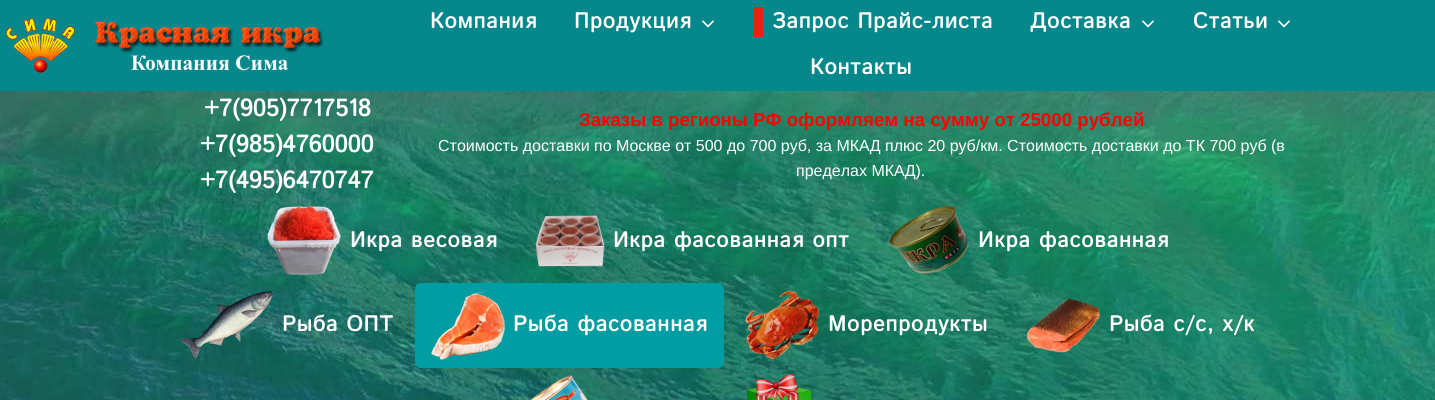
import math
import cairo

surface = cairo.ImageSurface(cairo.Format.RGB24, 1435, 400)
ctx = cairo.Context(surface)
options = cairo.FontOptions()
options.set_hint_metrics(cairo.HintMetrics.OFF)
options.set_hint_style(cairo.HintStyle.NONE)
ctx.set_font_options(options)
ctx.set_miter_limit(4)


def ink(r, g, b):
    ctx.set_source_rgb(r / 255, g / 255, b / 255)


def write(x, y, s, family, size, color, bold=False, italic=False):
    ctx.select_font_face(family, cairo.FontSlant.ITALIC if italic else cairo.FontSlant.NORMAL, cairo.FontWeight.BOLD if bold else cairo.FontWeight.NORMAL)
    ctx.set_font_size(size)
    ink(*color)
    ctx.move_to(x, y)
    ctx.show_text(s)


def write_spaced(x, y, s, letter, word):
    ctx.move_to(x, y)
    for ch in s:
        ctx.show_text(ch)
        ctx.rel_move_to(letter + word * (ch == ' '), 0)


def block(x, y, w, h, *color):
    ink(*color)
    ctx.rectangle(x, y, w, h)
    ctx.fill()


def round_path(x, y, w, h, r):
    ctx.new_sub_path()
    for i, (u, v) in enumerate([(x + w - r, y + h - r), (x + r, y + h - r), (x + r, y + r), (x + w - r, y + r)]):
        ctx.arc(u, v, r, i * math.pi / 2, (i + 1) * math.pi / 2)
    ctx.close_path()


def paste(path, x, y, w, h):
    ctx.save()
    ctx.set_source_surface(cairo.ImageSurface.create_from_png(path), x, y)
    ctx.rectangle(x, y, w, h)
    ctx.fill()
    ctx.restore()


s1 = dict(family="Istok Web", size=24, color=(255, 255, 255), bold=True)
s2 = dict(family="Liberation Sans", size=18.7, color=(255, 0, 0), bold=True)
s3 = dict(family="Liberation Sans", size=16, color=(255, 255, 255))

ink(5, 136, 140)
ctx.paint()
paste("pic1.png", 5, 17, 319, 57)
ctx.select_font_face("Istok Web", cairo.FontSlant.NORMAL, cairo.FontWeight.BOLD)
ctx.set_font_size(21.6)
ink(255, 255, 255)
write_spaced(430, 28, "Компания", 1, 0)
write_spaced(574, 28, "Продукция", 1, 0)
paste("pic2.png", 702, 20, 12, 8)
block(753, 7, 10, 30, 237, 34, 13)
ink(255, 255, 255)
write_spaced(772, 28, "Запрос Прайс-листа", 1, 0)
write_spaced(1030, 28, "Доставка", 1, 0)
paste("pic2.png", 1142, 20, 12, 8)
write_spaced(1193, 28, "Статьи", 1, 0)
paste("pic2.png", 1278, 20, 12, 8)
write_spaced(810, 74, "Контакты", 1, 0)
paste("pic3.png", 0, 91, 1435, 309)
write(204, 116, "+7(905)7717518", **s1)
write(200, 152, "+7(985)4760000", **s1)
write(200, 188, "+7(495)6470747", **s1)
write(579, 126, "Заказы в регионы РФ оформляем на сумму от 25000 рублей", **s2)
write(438, 151, "Стоимость доставки по Москве от 500 до 700 руб, за МКАД плюс 20 руб/км. Стоимость доставки до ТК 700 руб (в", **s3)
write(796, 176, "пределах МКАД).", **s3)
paste("pic4.png", 267, 206, 74, 69)
ctx.select_font_face("Istok Web", cairo.FontSlant.NORMAL, cairo.FontWeight.BOLD)
ctx.set_font_size(21.6)
write_spaced(350, 247, "Икра весовая", 1, 0)
paste("pic5.png", 535, 215, 70, 52)
write_spaced(613, 247, "Икра фасованная опт", 1, 0)
paste("pic6.png", 888, 206, 81, 68)
write_spaced(978, 247, "Икра фасованная", 1, 0)
paste("pic7.png", 180, 291, 94, 69)
write_spaced(282, 331, "Рыба ОПТ", 1, 0)
ink(0, 158, 163)
round_path(415, 283, 309, 85, 6)
ctx.fill()
paste("pic8.png", 431, 290, 74, 70)
ink(255, 255, 255)
write_spaced(513, 331, "Рыба фасованная", 1, 0)
paste("pic9.png", 745, 290, 75, 70)
write_spaced(828, 331, "Морепродукты", 1, 0)
paste("pic10.png", 1027, 298, 73, 55)
write_spaced(1109, 331, "Рыба с/с, х/к", 1, 0)
paste("pic11.png", 530, 375, 58, 25)
paste("pic12.png", 747, 374, 65, 26)
surface.write_to_png("screenshot.png")
